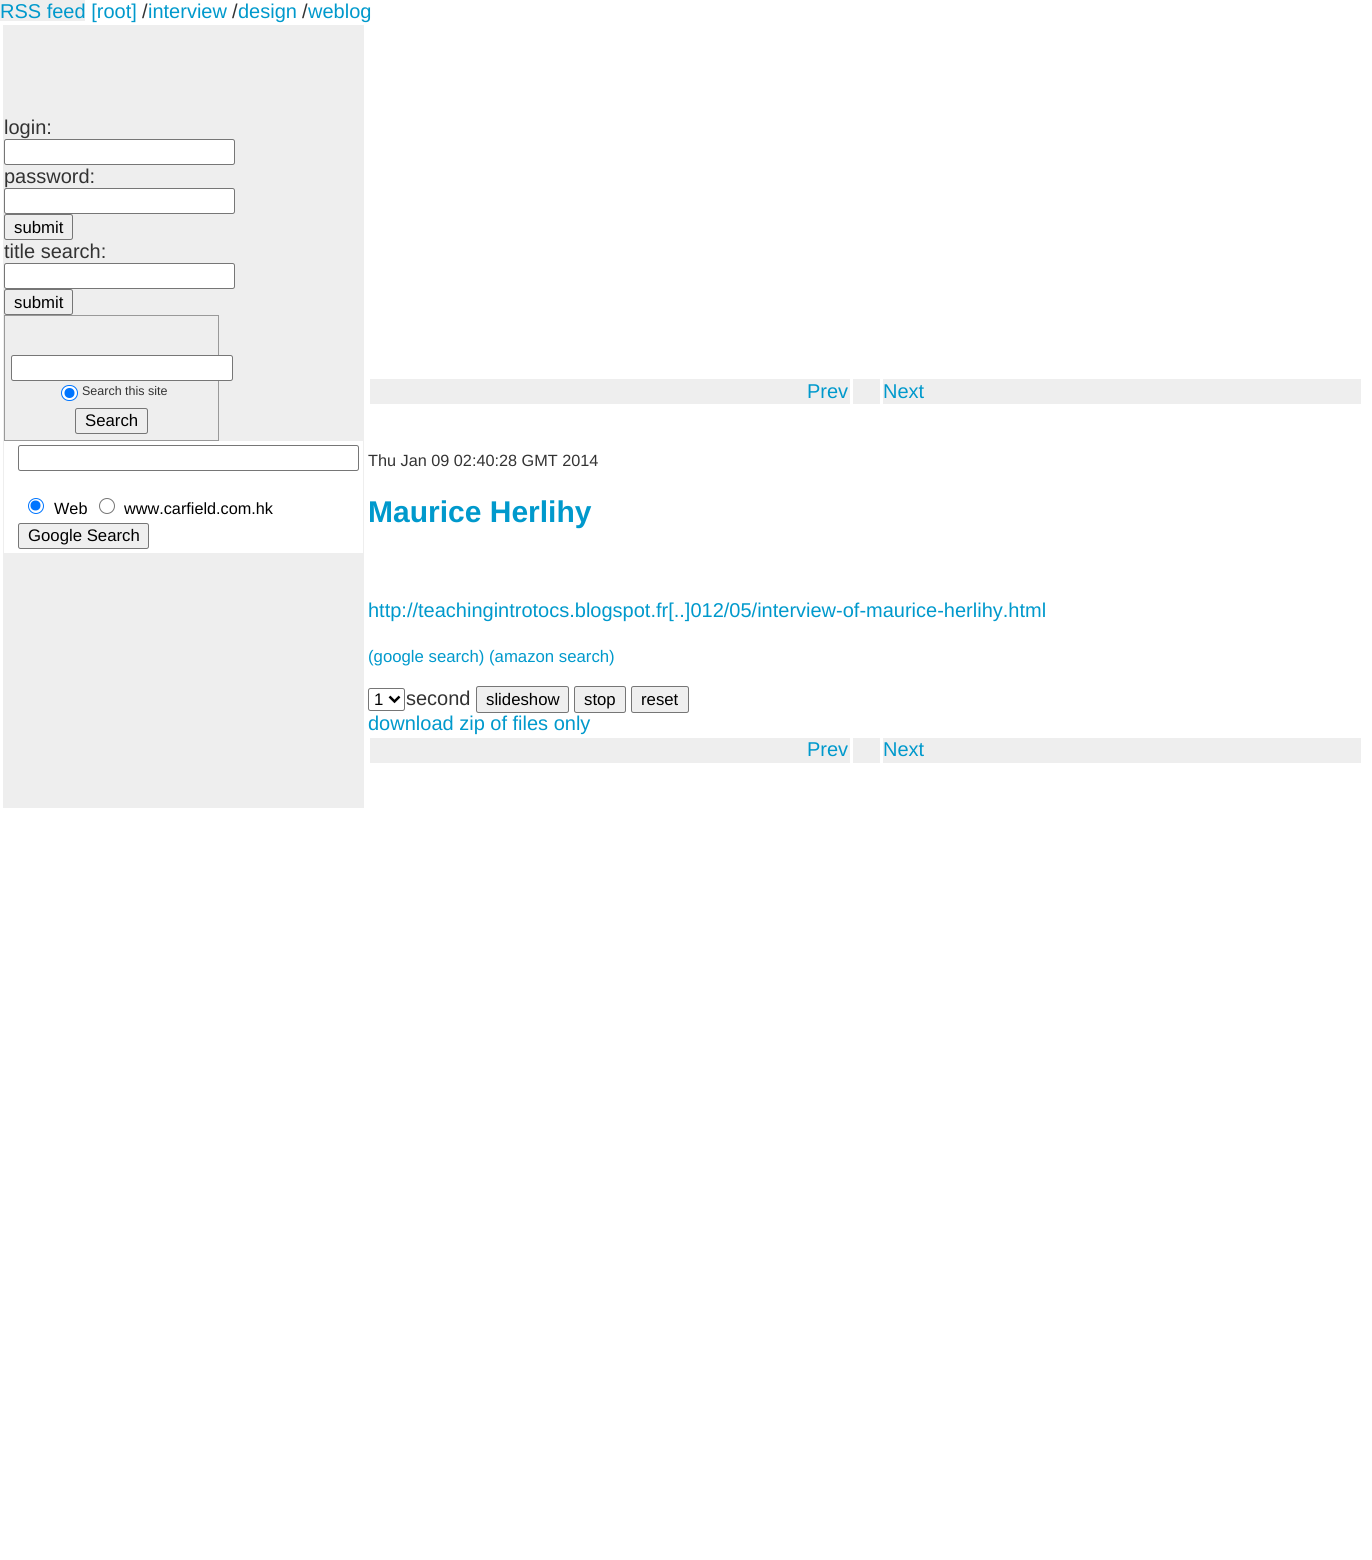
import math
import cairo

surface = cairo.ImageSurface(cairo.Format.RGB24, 1372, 1560)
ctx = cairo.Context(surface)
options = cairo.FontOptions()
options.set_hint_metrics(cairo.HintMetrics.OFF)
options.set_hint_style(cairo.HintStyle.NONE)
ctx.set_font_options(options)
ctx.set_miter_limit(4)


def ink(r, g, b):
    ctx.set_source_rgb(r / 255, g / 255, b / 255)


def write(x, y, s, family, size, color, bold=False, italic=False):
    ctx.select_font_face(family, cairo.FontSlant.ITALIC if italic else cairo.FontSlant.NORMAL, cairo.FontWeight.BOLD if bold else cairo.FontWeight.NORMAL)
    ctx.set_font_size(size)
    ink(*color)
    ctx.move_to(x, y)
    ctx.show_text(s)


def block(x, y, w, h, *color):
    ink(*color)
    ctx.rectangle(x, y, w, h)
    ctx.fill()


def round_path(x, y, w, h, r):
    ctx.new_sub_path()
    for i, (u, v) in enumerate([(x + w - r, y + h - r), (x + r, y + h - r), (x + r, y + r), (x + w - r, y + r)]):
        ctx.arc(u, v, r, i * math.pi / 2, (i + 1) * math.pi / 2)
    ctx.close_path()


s1 = dict(family="Liberation Sans", size=20, color=(0, 153, 204))
s2 = dict(family="Liberation Sans", size=20, color=(51, 51, 51))
s3 = dict(family="Liberation Sans", size=16.75, color=(0, 0, 0))
s4 = dict(family="Liberation Sans", size=12.5, color=(51, 51, 51))
s5 = dict(family="Liberation Sans", size=16.25, color=(0, 0, 0))
s6 = dict(family="Liberation Sans", size=16.25, color=(51, 51, 51))
s7 = dict(family="Liberation Sans", size=30, color=(0, 153, 204), bold=True)
s8 = dict(family="Liberation Sans", size=16.75, color=(0, 153, 204))

ink(255, 255, 255)
ctx.paint()
block(0, 0, 85, 21, 238, 238, 238)
write(0, 18, "RSS feed [root]", **s1)
write(142, 18, "/", **s2)
write(148, 18, "interview", **s1)
write(232, 18, "/", **s2)
write(238, 18, "design", **s1)
write(302, 18, "/", **s2)
write(308, 18, "weblog", **s1)
block(3, 25, 361, 783, 238, 238, 238)
write(4, 134, "login:", **s2)
ink(255, 255, 255)
round_path(4.5, 139.5, 230, 25, 2)
ctx.fill_preserve()
ink(118, 118, 118)
ctx.set_line_width(1)
ctx.stroke()
write(4, 183, "password:", **s2)
ink(255, 255, 255)
round_path(4.5, 188.5, 230, 25, 2)
ctx.fill_preserve()
ink(118, 118, 118)
ctx.stroke()
round_path(4.5, 214.5, 68, 25, 2)
ctx.stroke()
write(14, 233, "submit", **s3)
write(4, 258, "title search:", **s2)
ink(255, 255, 255)
round_path(4.5, 263.5, 230, 25, 2)
ctx.fill_preserve()
ink(118, 118, 118)
ctx.stroke()
round_path(4.5, 289.5, 68, 25, 2)
ctx.stroke()
write(14, 308, "submit", **s3)
ctx.rectangle(4.5, 315.5, 214, 125)
ink(153, 153, 153)
ctx.stroke()
ink(255, 255, 255)
round_path(11.5, 355.5, 221, 25, 2)
ctx.fill_preserve()
ink(118, 118, 118)
ctx.stroke()
ink(255, 255, 255)
round_path(61.5, 385.5, 16, 15, 7.5)
ctx.fill_preserve()
ink(0, 117, 255)
ctx.stroke()
ctx.arc(69.5, 393, 5, 0, 2 * math.pi)
ctx.fill()
write(82, 395, "Search this site", **s4)
round_path(75.5, 408.5, 72, 25, 2)
ink(118, 118, 118)
ctx.stroke()
write(85, 426, "Search", **s3)
block(4, 441, 359, 112, 255, 255, 255)
round_path(18.5, 445.5, 340, 25, 2)
ink(118, 118, 118)
ctx.stroke()
ctx.arc(36, 506, 7.5, 0, 2 * math.pi)
ink(0, 117, 255)
ctx.stroke()
ctx.arc(35.5, 505.5, 5, 0, 2 * math.pi)
ctx.fill()
write(54, 514, "Web", **s5)
ctx.new_path()
ctx.arc(107, 506, 7.5, 0, 2 * math.pi)
ink(118, 118, 118)
ctx.stroke()
write(124, 514, "www.carfield.com.hk", **s5)
ink(239, 239, 239)
round_path(18.5, 523.5, 130, 25, 2)
ctx.fill_preserve()
ink(118, 118, 118)
ctx.stroke()
write(28, 541, "Google Search", **s3)
block(370, 379, 480, 25, 238, 238, 238)
write(807, 398, "Prev", **s1)
block(853, 379, 27, 25, 238, 238, 238)
block(883, 379, 478, 25, 238, 238, 238)
write(883, 398, "Next", **s1)
write(368, 466, "Thu Jan 09 02:40:28 GMT 2014", **s6)
write(368, 522, "Maurice Herlihy", **s7)
write(368, 617, "http://teachingintrotocs.blogspot.fr[..]012/05/interview-of-maurice-herlihy.html", **s1)
write(368, 662, "(google search)", **s8)
write(489, 662, "(amazon search)", **s8)
round_path(368.5, 688.5, 36, 22, 2)
ink(118, 118, 118)
ctx.stroke()
ctx.new_path()
ctx.move_to(389.5, 696.5)
ctx.line_to(394.5, 701.5)
ctx.line_to(399.5, 696.5)
ink(0, 0, 0)
ctx.set_line_width(2.5)
ctx.stroke()
write(374, 705, "1", **s3)
write(406, 705, "second", **s2)
ink(239, 239, 239)
round_path(476.5, 686.5, 92, 26, 2)
ctx.fill_preserve()
ink(118, 118, 118)
ctx.set_line_width(1)
ctx.stroke()
write(486, 705, "slideshow", **s3)
ink(239, 239, 239)
round_path(574.5, 686.5, 51, 26, 2)
ctx.fill_preserve()
ink(118, 118, 118)
ctx.stroke()
write(584, 705, "stop", **s3)
ink(239, 239, 239)
round_path(631.5, 686.5, 57, 26, 2)
ctx.fill_preserve()
ink(118, 118, 118)
ctx.stroke()
write(641, 705, "reset", **s3)
write(368, 730, "download zip of files only", **s1)
block(370, 738, 480, 25, 238, 238, 238)
write(807, 756, "Prev", **s1)
block(853, 738, 27, 25, 238, 238, 238)
block(883, 738, 478, 25, 238, 238, 238)
write(883, 756, "Next", **s1)
surface.write_to_png("screenshot.png")
